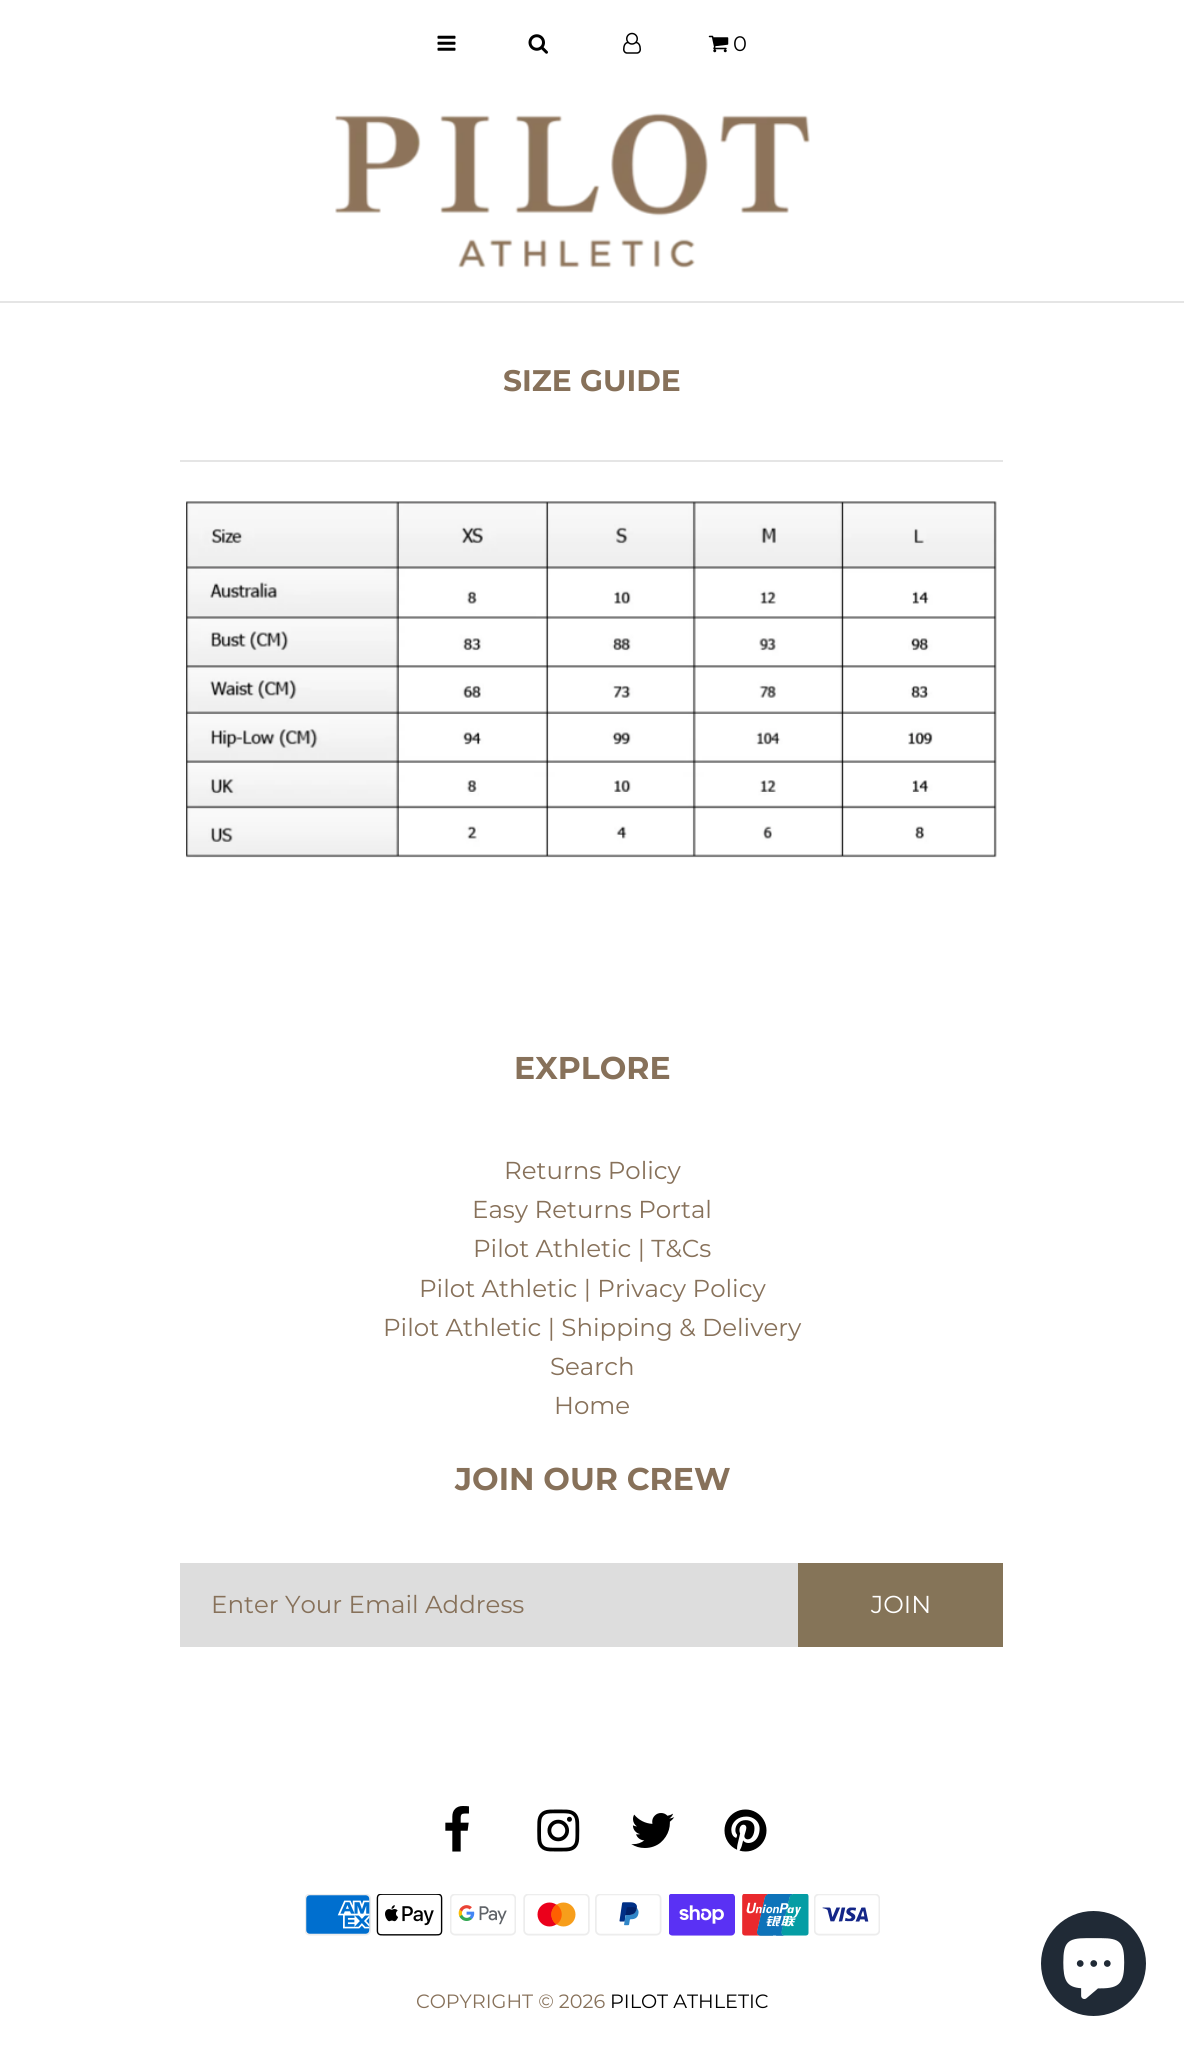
import math
import cairo

surface = cairo.ImageSurface(cairo.Format.RGB24, 1184, 2052)
ctx = cairo.Context(surface)
options = cairo.FontOptions()
options.set_hint_metrics(cairo.HintMetrics.OFF)
options.set_hint_style(cairo.HintStyle.NONE)
ctx.set_font_options(options)
ctx.set_miter_limit(4)


def ink(r, g, b):
    ctx.set_source_rgb(r / 255, g / 255, b / 255)


def write(x, y, s, family, size, color, bold=False, italic=False):
    ctx.select_font_face(family, cairo.FontSlant.ITALIC if italic else cairo.FontSlant.NORMAL, cairo.FontWeight.BOLD if bold else cairo.FontWeight.NORMAL)
    ctx.set_font_size(size)
    ink(*color)
    ctx.move_to(x, y)
    ctx.show_text(s)


def block(x, y, w, h, *color):
    ink(*color)
    ctx.rectangle(x, y, w, h)
    ctx.fill()


def paste(path, x, y, w, h):
    ctx.save()
    ctx.set_source_surface(cairo.ImageSurface.create_from_png(path), x, y)
    ctx.rectangle(x, y, w, h)
    ctx.fill()
    ctx.restore()


s1 = dict(family="Montserrat Thin", size=21, color=(0, 0, 0))
s2 = dict(family="Montserrat", size=29.75, color=(135, 113, 90), bold=True)
s3 = dict(family="Montserrat", size=31.5, color=(135, 113, 90), bold=True)
s4 = dict(family="Montserrat Thin", size=24.5, color=(135, 113, 90))
s5 = dict(family="Montserrat Thin", size=24.5, color=(255, 255, 255))
s6 = dict(family="Montserrat Thin", size=19.25, color=(135, 113, 90))
s7 = dict(family="Montserrat Thin", size=19.25, color=(0, 0, 0))

ink(255, 255, 255)
ctx.paint()
block(0, 301, 1184, 2, 229, 229, 229)
paste("pic1.png", 437, 35, 19, 16)
paste("pic2.png", 528, 34, 20, 20)
paste("pic3.png", 623, 32, 18, 22)
paste("pic4.png", 708, 35, 21, 18)
write(733, 51, "0", **s1)
paste("pic5.png", 335, 113, 475, 155)
block(180, 460, 823, 2, 229, 229, 229)
write(503, 391, "SIZE GUIDE", **s2)
paste("pic6.png", 185, 501, 812, 357)
write(514, 1079, "EXPLORE", **s3)
write(504, 1179, "Returns Policy", **s4)
write(472, 1218, "Easy Returns Portal", **s4)
write(473, 1257, "Pilot Athletic | T&Cs", **s4)
write(419, 1297, "Pilot Athletic | Privacy Policy", **s4)
write(383, 1336, "Pilot Athletic | Shipping & Delivery", **s4)
write(550, 1375, "Search", **s4)
write(554, 1414, "Home", **s4)
write(455, 1490, "JOIN OUR CREW", **s3)
block(180, 1563, 618, 84, 221, 221, 221)
write(211, 1613, "Enter Your Email Address", **s4)
block(798, 1563, 205, 84, 133, 116, 88)
write(871, 1613, "JOIN", **s5)
paste("pic7.png", 445, 1806, 24, 46)
paste("pic8.png", 537, 1809, 43, 43)
paste("pic9.png", 631, 1813, 44, 35)
paste("pic10.png", 724, 1809, 43, 43)
paste("pic11.png", 305, 1894, 66, 42)
paste("pic12.png", 376, 1894, 67, 42)
paste("pic13.png", 450, 1894, 66, 42)
paste("pic14.png", 523, 1894, 67, 42)
paste("pic15.png", 595, 1894, 67, 42)
paste("pic16.png", 669, 1894, 66, 42)
paste("pic17.png", 742, 1894, 67, 42)
paste("pic18.png", 814, 1894, 66, 42)
write(416, 2008, "COPYRIGHT © 2026", **s6)
write(610, 2008, "PILOT ATHLETIC", **s7)
ink(32, 42, 54)
ctx.new_path()
ctx.arc(1093.5, 1963.5, 52.5, 0, 2 * math.pi)
ctx.fill()
paste("pic19.png", 1063, 1938, 62, 61)
surface.write_to_png("screenshot.png")
